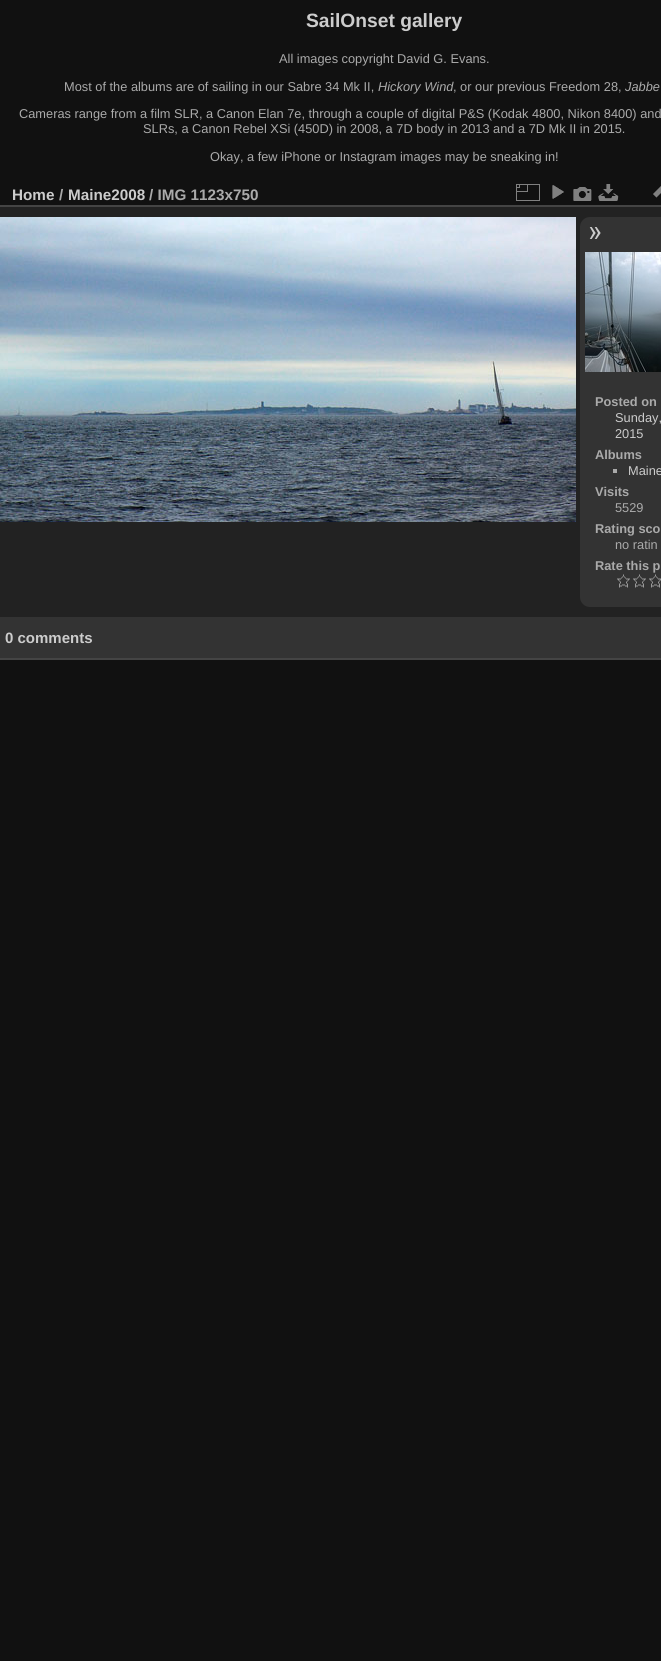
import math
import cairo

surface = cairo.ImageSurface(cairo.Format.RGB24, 661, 1661)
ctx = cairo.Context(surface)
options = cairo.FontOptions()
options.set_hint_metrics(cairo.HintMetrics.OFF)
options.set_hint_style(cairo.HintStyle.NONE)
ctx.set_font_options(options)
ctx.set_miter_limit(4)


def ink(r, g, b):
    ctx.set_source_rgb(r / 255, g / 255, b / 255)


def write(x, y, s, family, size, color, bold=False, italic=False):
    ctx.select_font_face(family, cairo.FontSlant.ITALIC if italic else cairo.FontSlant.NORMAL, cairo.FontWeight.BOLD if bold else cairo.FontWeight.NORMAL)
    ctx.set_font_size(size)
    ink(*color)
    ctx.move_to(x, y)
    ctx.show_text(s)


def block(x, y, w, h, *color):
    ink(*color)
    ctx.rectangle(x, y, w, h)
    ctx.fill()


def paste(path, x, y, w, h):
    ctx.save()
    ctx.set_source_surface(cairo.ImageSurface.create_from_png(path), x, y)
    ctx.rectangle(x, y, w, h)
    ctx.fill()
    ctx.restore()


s1 = dict(family="Liberation Sans", size=19.25, color=(204, 204, 204), bold=True)
s2 = dict(family="Liberation Sans", size=12.8, color=(170, 170, 170))
s3 = dict(family="Liberation Sans", size=12.8, color=(170, 170, 170), italic=True)
s4 = dict(family="Liberation Sans", size=15.25, color=(204, 204, 204), bold=True)
s5 = dict(family="Liberation Sans", size=15.25, color=(170, 170, 170), bold=True)
s6 = dict(family="Liberation Sans", size=12.8, color=(170, 170, 170), bold=True)
s7 = dict(family="Liberation Sans", size=12.8, color=(204, 204, 204))
s8 = dict(family="Liberation Sans", size=15, color=(204, 204, 204), bold=True)

ink(17, 17, 17)
ctx.paint()
write(306, 27, "SailOnset gallery", **s1)
write(279, 63, "All images copyright David G. Evans.", **s2)
write(64, 91, "Most of the albums are of sailing in our Sabre 34 Mk II,", **s2)
write(378, 91, "Hickory Wind", **s3)
write(453, 91, ", or our previous Freedom 28,", **s2)
write(625, 91, "Jabbe", **s3)
write(19, 118, "Cameras range from a film SLR, a Canon Elan 7e, through a couple of digital P&S (Kodak 4800, Nikon 8400) and", **s2)
write(143, 133, "SLRs, a Canon Rebel XSi (450D) in 2008, a 7D body in 2013 and a 7D Mk II in 2015.", **s2)
write(210, 161, "Okay, a few iPhone or Instagram images may be sneaking in!", **s2)
block(0, 207, 661, 410, 34, 34, 34)
block(0, 658, 661, 2, 68, 68, 68)
block(0, 205, 661, 2, 68, 68, 68)
write(12, 200, "Home", **s4)
write(59, 200, "/", **s5)
write(68, 200, "Maine2008", **s4)
write(149, 200, "/ IMG 1123x750", **s5)
paste("pic1.png", 516, 184, 24, 17)
paste("pic2.png", 552, 185, 12, 14)
paste("pic3.png", 573, 187, 19, 14)
paste("pic4.png", 598, 184, 21, 17)
paste("pic5.png", 653, 186, 8, 12)
paste("pic6.png", 0, 217, 576, 305)
ink(51, 51, 51)
ctx.new_path()
ctx.move_to(590, 217)
ctx.line_to(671, 217)
ctx.line_to(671, 607)
ctx.line_to(590, 607)
ctx.curve_to(584.5, 607, 580, 602.5, 580, 597)
ctx.line_to(580, 227)
ctx.curve_to(580, 221.5, 584.5, 217, 590, 217)
ctx.close_path()
ctx.fill()
paste("pic7.png", 589, 227, 12, 12)
paste("pic8.png", 585, 252, 76, 120)
write(595, 406, "Posted on", **s6)
write(615, 422, "Sunday,", **s7)
write(615, 438, "2015", **s7)
write(595, 459, "Albums", **s6)
block(613, 469, 4, 4, 170, 170, 170)
write(628, 475, "Maine", **s7)
write(595, 496, "Visits", **s6)
write(615, 512, "5529", **s2)
write(595, 533, "Rating sco", **s6)
write(615, 549, "no ratin", **s2)
write(595, 570, "Rate this p", **s6)
paste("pic9.png", 617, 574, 13, 14)
paste("pic9.png", 633, 574, 13, 14)
paste("pic10.png", 649, 574, 12, 14)
block(0, 617, 661, 41, 51, 51, 51)
write(5, 643, "0 comments", **s8)
surface.write_to_png("screenshot.png")
